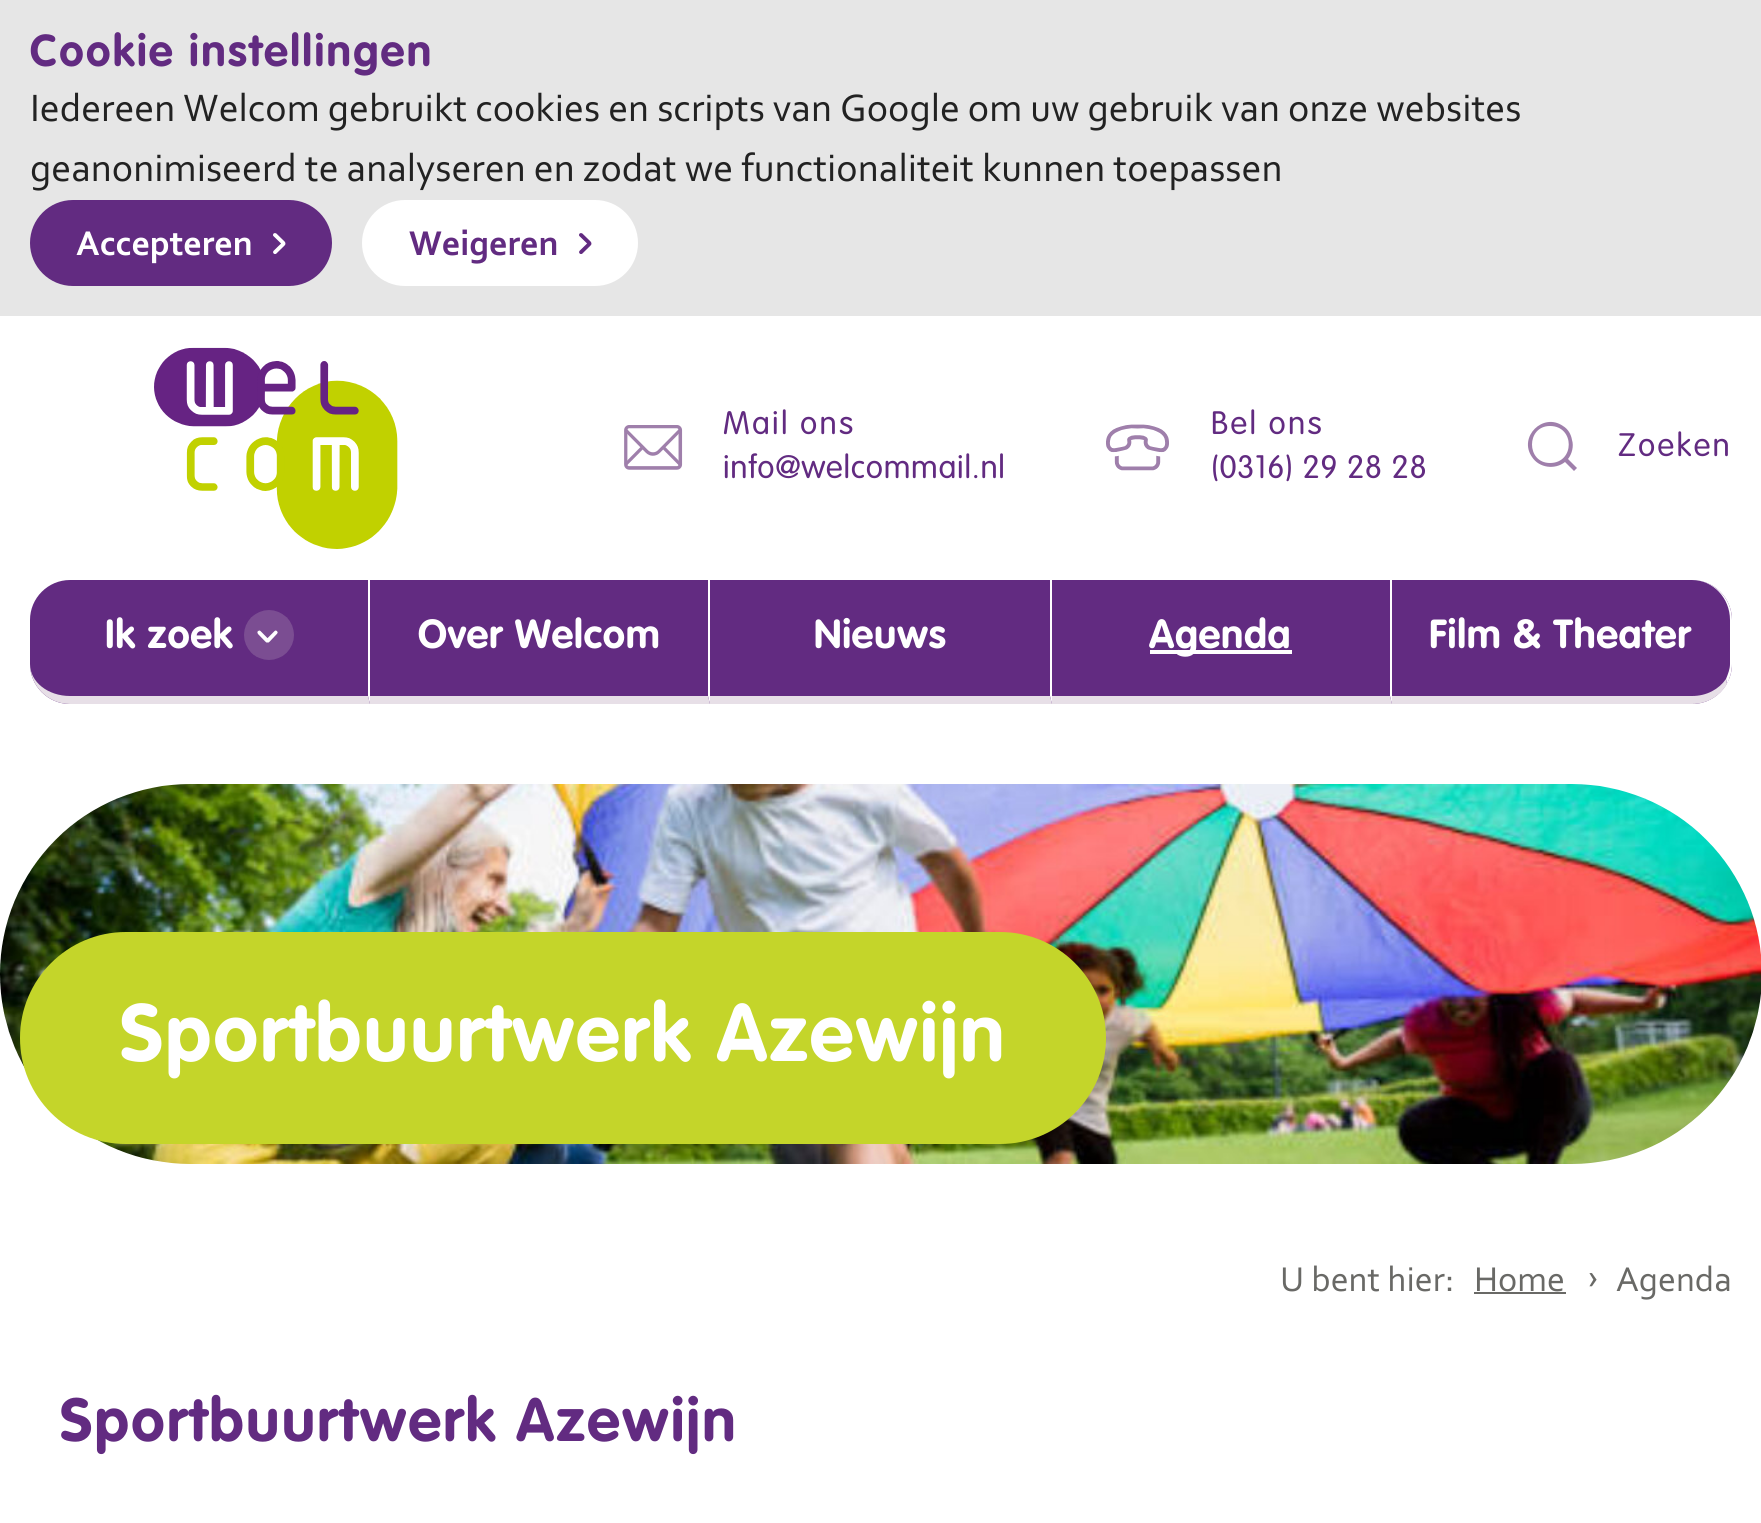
import math
import cairo

surface = cairo.ImageSurface(cairo.Format.RGB24, 1761, 1523)
ctx = cairo.Context(surface)
options = cairo.FontOptions()
options.set_hint_metrics(cairo.HintMetrics.OFF)
options.set_hint_style(cairo.HintStyle.NONE)
ctx.set_font_options(options)
ctx.set_miter_limit(4)


def ink(r, g, b):
    ctx.set_source_rgb(r / 255, g / 255, b / 255)


def write(x, y, s, family, size, color, bold=False, italic=False):
    ctx.select_font_face(family, cairo.FontSlant.ITALIC if italic else cairo.FontSlant.NORMAL, cairo.FontWeight.BOLD if bold else cairo.FontWeight.NORMAL)
    ctx.set_font_size(size)
    ink(*color)
    ctx.move_to(x, y)
    ctx.show_text(s)


def write_spaced(x, y, s, letter, word):
    ctx.move_to(x, y)
    for ch in s:
        ctx.show_text(ch)
        ctx.rel_move_to(letter + word * (ch == ' '), 0)


def block(x, y, w, h, *color):
    ink(*color)
    ctx.rectangle(x, y, w, h)
    ctx.fill()


def round_path(x, y, w, h, r):
    ctx.new_sub_path()
    for i, (u, v) in enumerate([(x + w - r, y + h - r), (x + r, y + h - r), (x + r, y + r), (x + w - r, y + r)]):
        ctx.arc(u, v, r, i * math.pi / 2, (i + 1) * math.pi / 2)
    ctx.close_path()


def paste(path, x, y, w, h):
    ctx.save()
    ctx.set_source_surface(cairo.ImageSurface.create_from_png(path), x, y)
    ctx.rectangle(x, y, w, h)
    ctx.fill()
    ctx.restore()


s1 = dict(family="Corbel", size=40, color=(34, 34, 34))
s2 = dict(family="Corbel", size=36, color=(255, 255, 255), bold=True)
s3 = dict(family="Corbel", size=36, color=(98, 43, 129), bold=True)
s4 = dict(family="Corbel", size=36, color=(105, 105, 102))

ink(255, 255, 255)
ctx.paint()
block(0, 0, 1761, 316, 230, 230, 230)
ctx.select_font_face("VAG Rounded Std", cairo.FontSlant.NORMAL, cairo.FontWeight.BOLD)
ctx.set_font_size(44)
ink(98, 43, 129)
write_spaced(30, 66, "Cookie instellingen", 2.3, 0)
write(30, 121, "Iedereen Welcom gebruikt cookies en scripts van Google om uw gebruik van onze websites", **s1)
write(30, 181, "geanonimiseerd te analyseren en zodat we functionaliteit kunnen toepassen", **s1)
ink(98, 43, 129)
round_path(31, 201, 300, 84, 42)
ctx.fill_preserve()
ctx.stroke()
write(76, 255, "Accepteren", **s2)
paste("pic1.png", 273, 233, 13, 21)
round_path(363, 201, 274, 84, 42)
ctx.fill_preserve()
ctx.stroke()
write(409, 255, "Weigeren", **s3)
paste("pic2.png", 579, 233, 13, 21)
paste("pic3.png", 154, 347, 244, 202)
paste("pic4.png", 624, 425, 59, 45)
ctx.select_font_face("VAG Rounded Std Light")
ctx.set_font_size(32)
write_spaced(723, 434, "Mail ons", 2.3, 0)
write_spaced(723, 478, "info@welcommail.nl", 0.75, 0)
paste("pic5.png", 1106, 424, 63, 47)
write_spaced(1211, 434, "Bel ons", 2.3, 0)
write_spaced(1211, 478, "(0316) 29 28 28", 0.75, 0)
ink(159, 127, 171)
ctx.set_fill_rule(cairo.FillRule.EVEN_ODD)
ctx.new_path()
ctx.move_to(1550, 463)
ctx.curve_to(1526, 463, 1526, 426, 1550, 426)
ctx.curve_to(1575, 426, 1575, 463, 1550, 463)
ctx.close_path()
ctx.move_to(1577, 468)
ctx.line_to(1568, 459)
ctx.curve_to(1572, 454, 1574, 446, 1572, 440)
ctx.curve_to(1571, 434, 1568, 429, 1563, 426)
ctx.curve_to(1543, 412, 1518, 437, 1532, 457)
ctx.curve_to(1539, 468, 1555, 470, 1565, 462)
ctx.line_to(1574, 471)
ctx.close_path()
ctx.fill()
ink(98, 43, 129)
write_spaced(1618, 456, "Zoeken", 2.3, 0)
ctx.new_path()
ctx.move_to(70, 580)
ctx.line_to(370, 580)
ctx.line_to(370, 704)
ctx.line_to(70, 704)
ctx.curve_to(48, 704, 30, 686, 30, 664)
ctx.line_to(30, 620)
ctx.curve_to(30, 598, 48, 580, 70, 580)
ctx.close_path()
ctx.fill()
ink(255, 255, 255)
ctx.set_fill_rule(cairo.FillRule.WINDING)
ctx.new_path()
ctx.move_to(370, 580)
ctx.line_to(368, 580)
ctx.line_to(368, 696)
ctx.line_to(370, 704)
ctx.close_path()
ctx.fill()
ink(231, 223, 231)
ctx.new_path()
ctx.move_to(370, 704)
ctx.line_to(368, 696)
ctx.line_to(70, 696)
ctx.curve_to(48, 696, 30, 682, 30, 664)
ctx.curve_to(30, 686, 48, 704, 70, 704)
ctx.close_path()
ctx.fill()
ctx.select_font_face("VAG Rounded Std", cairo.FontSlant.NORMAL, cairo.FontWeight.BOLD)
ctx.set_font_size(40)
ink(255, 255, 255)
write_spaced(105, 648, "Ik zoek", 0.75, 0)
paste("pic6.png", 244, 610, 50, 50)
block(370, 580, 1022, 124, 98, 43, 129)
ink(255, 255, 255)
ctx.new_path()
ctx.move_to(710, 580)
ctx.line_to(710, 704)
ctx.line_to(708, 696)
ctx.line_to(708, 580)
ctx.close_path()
ctx.fill()
ink(231, 223, 231)
ctx.new_path()
ctx.move_to(710, 704)
ctx.line_to(370, 704)
ctx.line_to(370, 696)
ctx.line_to(708, 696)
ctx.close_path()
ctx.fill()
ink(255, 255, 255)
write_spaced(418, 648, "Over Welcom", 0.75, 0)
ctx.new_path()
ctx.move_to(1052, 580)
ctx.line_to(1052, 704)
ctx.line_to(1050, 696)
ctx.line_to(1050, 580)
ctx.close_path()
ctx.fill()
ink(231, 223, 231)
ctx.new_path()
ctx.move_to(1052, 704)
ctx.line_to(710, 704)
ctx.line_to(710, 696)
ctx.line_to(1050, 696)
ctx.close_path()
ctx.fill()
ink(255, 255, 255)
write_spaced(814, 648, "Nieuws", 0.75, 0)
ctx.new_path()
ctx.move_to(1392, 580)
ctx.line_to(1392, 704)
ctx.line_to(1390, 696)
ctx.line_to(1390, 580)
ctx.close_path()
ctx.fill()
ink(231, 223, 231)
ctx.new_path()
ctx.move_to(1392, 704)
ctx.line_to(1052, 704)
ctx.line_to(1052, 696)
ctx.line_to(1390, 696)
ctx.close_path()
ctx.fill()
block(1150, 650, 142, 4, 255, 255, 255)
write_spaced(1149, 648, "Agenda", 0.75, 0)
ink(98, 43, 129)
ctx.new_path()
ctx.move_to(1392, 580)
ctx.line_to(1692, 580)
ctx.curve_to(1714, 580, 1732, 598, 1732, 620)
ctx.line_to(1732, 664)
ctx.curve_to(1732, 686, 1714, 704, 1692, 704)
ctx.line_to(1392, 704)
ctx.close_path()
ctx.fill()
ink(255, 255, 255)
ctx.new_path()
ctx.move_to(1732, 620)
ctx.curve_to(1732, 598, 1714, 580, 1692, 580)
ctx.curve_to(1713, 580, 1730, 598, 1730, 620)
ctx.line_to(1730, 664)
ctx.curve_to(1730, 669, 1728, 674, 1726, 679)
ctx.line_to(1727, 684)
ctx.curve_to(1730, 678, 1732, 671, 1732, 664)
ctx.close_path()
ctx.fill()
ink(231, 223, 231)
ctx.new_path()
ctx.move_to(1392, 696)
ctx.line_to(1392, 704)
ctx.line_to(1692, 704)
ctx.curve_to(1707, 704, 1720, 696, 1727, 684)
ctx.line_to(1726, 679)
ctx.curve_to(1719, 689, 1707, 696, 1692, 696)
ctx.close_path()
ctx.fill()
ink(255, 255, 255)
write_spaced(1429, 648, "Film & Theater", 0.75, 0)
paste("pic7.png", 0, 784, 1761, 380)
ink(196, 213, 42)
round_path(20, 932, 1086, 212, 106)
ctx.fill()
ctx.set_font_size(80)
ink(255, 255, 255)
write_spaced(120, 1061, "Sportbuurtwerk Azewijn", 2.3, 0)
write(1280, 1291, "U bent hier:", **s4)
write(1474, 1291, "Home", **s4)
block(1474, 1292, 92, 2, 105, 105, 102)
write(1588, 1288, "›", **s4)
write(1616, 1291, "Agenda", **s4)
ctx.select_font_face("VAG Rounded Std", cairo.FontSlant.NORMAL, cairo.FontWeight.BOLD)
ctx.set_font_size(60)
ink(98, 43, 129)
write_spaced(60, 1441, "Sportbuurtwerk Azewijn", 2.3, 0)
surface.write_to_png("screenshot.png")
